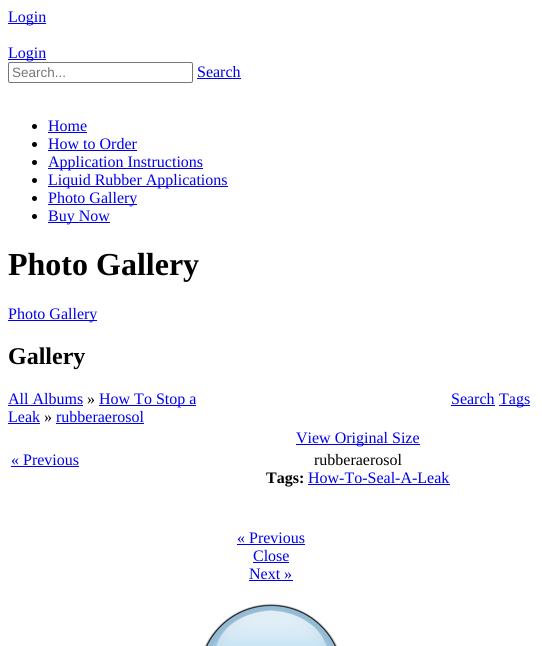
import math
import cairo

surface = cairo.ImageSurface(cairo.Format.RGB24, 542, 646)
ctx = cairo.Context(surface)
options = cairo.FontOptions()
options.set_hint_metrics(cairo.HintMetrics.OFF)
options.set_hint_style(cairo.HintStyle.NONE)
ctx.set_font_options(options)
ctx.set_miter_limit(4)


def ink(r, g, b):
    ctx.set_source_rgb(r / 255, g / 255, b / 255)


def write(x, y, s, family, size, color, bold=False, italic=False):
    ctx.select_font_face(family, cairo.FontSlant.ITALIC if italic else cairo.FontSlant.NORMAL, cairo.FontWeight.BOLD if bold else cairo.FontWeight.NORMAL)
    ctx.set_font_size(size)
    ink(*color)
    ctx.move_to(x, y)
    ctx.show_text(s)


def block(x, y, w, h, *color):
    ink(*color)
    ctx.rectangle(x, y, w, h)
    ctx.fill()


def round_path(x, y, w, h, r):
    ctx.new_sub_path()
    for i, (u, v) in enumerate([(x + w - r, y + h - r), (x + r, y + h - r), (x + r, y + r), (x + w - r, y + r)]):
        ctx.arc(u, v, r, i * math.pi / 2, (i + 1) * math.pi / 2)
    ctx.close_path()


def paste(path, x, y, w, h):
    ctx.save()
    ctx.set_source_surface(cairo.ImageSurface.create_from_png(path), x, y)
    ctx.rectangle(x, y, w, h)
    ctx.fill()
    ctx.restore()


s1 = dict(family="Liberation Serif", size=16, color=(0, 0, 238))
s2 = dict(family="Liberation Sans", size=13.5, color=(117, 117, 117))
s3 = dict(family="Liberation Serif", size=32, color=(0, 0, 0), bold=True)
s4 = dict(family="Liberation Serif", size=24, color=(0, 0, 0), bold=True)
s5 = dict(family="Liberation Serif", size=16, color=(0, 0, 0))
s6 = dict(family="Liberation Serif", size=16, color=(0, 0, 0), bold=True)

ink(255, 255, 255)
ctx.paint()
block(8, 23, 38, 1, 0, 0, 238)
write(8, 22, "Login", **s1)
block(8, 59, 38, 1, 0, 0, 238)
write(8, 58, "Login", **s1)
round_path(8.5, 62.5, 184, 20, 1.5)
ink(118, 118, 118)
ctx.set_line_width(1)
ctx.stroke()
write(12, 77, "Search...", **s2)
write(197, 77, "Search", **s1)
block(197, 78, 44, 1, 0, 0, 238)
ink(0, 0, 0)
ctx.new_path()
ctx.arc(34.5, 126.5, 2.5, 0, 2 * math.pi)
ctx.fill()
write(48, 131, "Home", **s1)
block(48, 132, 39, 1, 0, 0, 238)
ink(0, 0, 0)
ctx.new_path()
ctx.arc(34.5, 144.5, 2.5, 0, 2 * math.pi)
ctx.fill()
write(48, 149, "How to Order", **s1)
block(48, 150, 89, 1, 0, 0, 238)
ink(0, 0, 0)
ctx.new_path()
ctx.arc(34.5, 162.5, 2.5, 0, 2 * math.pi)
ctx.fill()
block(48, 168, 155, 1, 0, 0, 238)
write(48, 167, "Application Instructions", **s1)
ink(0, 0, 0)
ctx.new_path()
ctx.arc(34.5, 180.5, 2.5, 0, 2 * math.pi)
ctx.fill()
block(48, 186, 180, 1, 0, 0, 238)
write(48, 185, "Liquid Rubber Applications", **s1)
ink(0, 0, 0)
ctx.new_path()
ctx.arc(34.5, 198.5, 2.5, 0, 2 * math.pi)
ctx.fill()
block(48, 204, 89, 1, 0, 0, 238)
write(48, 203, "Photo Gallery", **s1)
ink(0, 0, 0)
ctx.new_path()
ctx.arc(34.5, 216.5, 2.5, 0, 2 * math.pi)
ctx.fill()
block(48, 222, 62, 1, 0, 0, 238)
write(48, 221, "Buy Now", **s1)
write(8, 275, "Photo Gallery", **s3)
block(8, 320, 89, 1, 0, 0, 238)
write(8, 319, "Photo Gallery", **s1)
write(8, 364, "Gallery", **s4)
write(8, 404, "All Albums", **s1)
block(8, 405, 75, 1, 0, 0, 238)
write(87, 404, "»", **s5)
block(99, 405, 97, 1, 0, 0, 238)
write(99, 404, "How To Stop a", **s1)
write(8, 422, "Leak", **s1)
block(8, 423, 32, 1, 0, 0, 238)
write(44, 422, "»", **s5)
write(56, 422, "rubberaerosol", **s1)
block(56, 423, 88, 1, 0, 0, 238)
write(451, 404, "Search", **s1)
block(451, 405, 44, 1, 0, 0, 238)
block(499, 405, 31, 1, 0, 0, 238)
write(499, 404, "Tags", **s1)
block(296, 444, 124, 1, 0, 0, 238)
write(296, 443, "View Original Size", **s1)
write(11, 465, "« Previous", **s1)
block(11, 466, 68, 1, 0, 0, 238)
write(314, 465, "rubberaerosol", **s5)
write(266, 483, "Tags:", **s6)
write(308, 483, "How-To-Seal-A-Leak", **s1)
block(308, 484, 142, 1, 0, 0, 238)
write(237, 543, "« Previous", **s1)
block(237, 544, 68, 1, 0, 0, 238)
write(253, 561, "Close", **s1)
block(253, 562, 36, 1, 0, 0, 238)
write(249, 579, "Next »", **s1)
block(249, 580, 44, 1, 0, 0, 238)
paste("pic1.png", 204, 603, 134, 43)
surface.write_to_png("screenshot.png")
